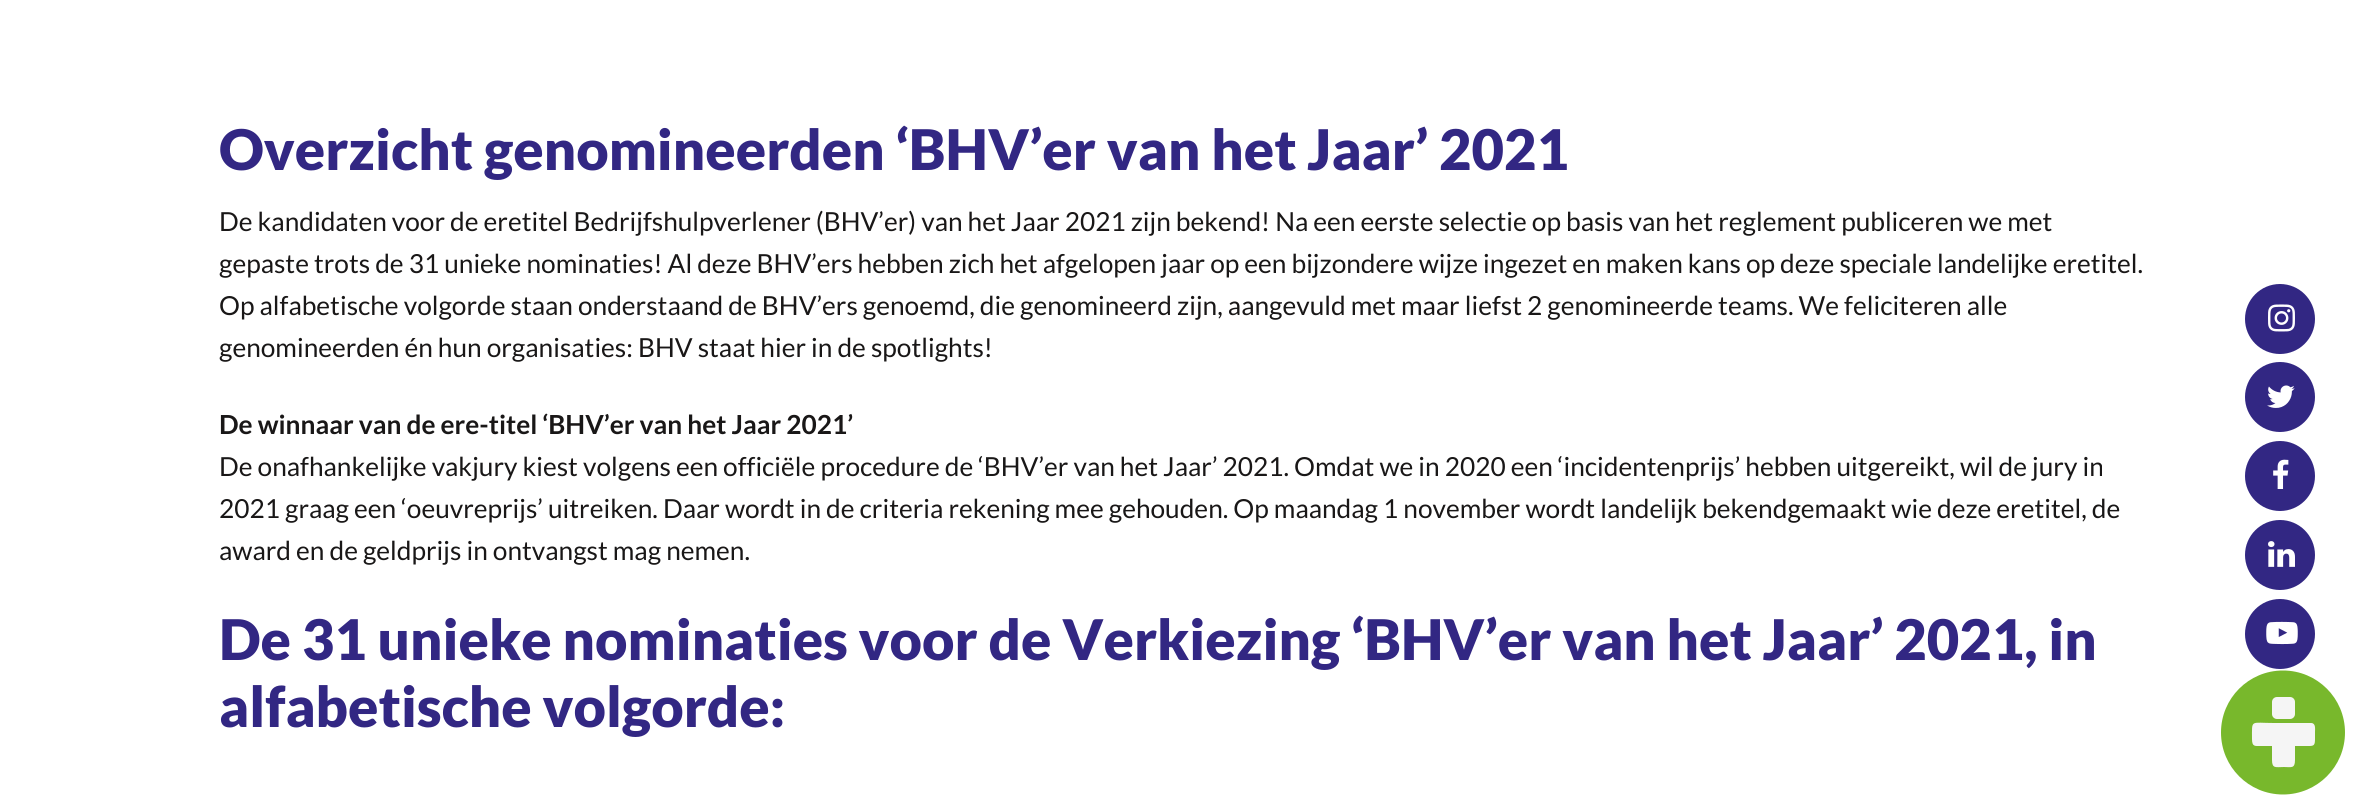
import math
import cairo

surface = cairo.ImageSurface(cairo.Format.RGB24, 2361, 812)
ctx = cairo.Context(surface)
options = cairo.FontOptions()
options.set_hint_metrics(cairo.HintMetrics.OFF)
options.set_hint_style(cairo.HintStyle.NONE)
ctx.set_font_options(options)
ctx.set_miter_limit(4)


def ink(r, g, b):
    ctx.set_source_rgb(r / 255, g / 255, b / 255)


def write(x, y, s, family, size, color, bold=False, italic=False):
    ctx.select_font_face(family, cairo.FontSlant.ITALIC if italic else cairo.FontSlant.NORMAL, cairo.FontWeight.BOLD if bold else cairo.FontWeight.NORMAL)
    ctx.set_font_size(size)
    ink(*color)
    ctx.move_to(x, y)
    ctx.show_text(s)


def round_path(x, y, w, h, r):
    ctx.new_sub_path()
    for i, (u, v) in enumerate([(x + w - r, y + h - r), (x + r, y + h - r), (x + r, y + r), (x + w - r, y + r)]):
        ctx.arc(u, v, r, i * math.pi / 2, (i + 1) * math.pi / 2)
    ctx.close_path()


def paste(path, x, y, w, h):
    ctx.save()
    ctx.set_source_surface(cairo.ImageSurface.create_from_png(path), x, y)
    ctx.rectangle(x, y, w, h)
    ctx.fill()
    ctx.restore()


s1 = dict(family="Lato Black", size=56, color=(50, 39, 131))
s2 = dict(family="Lato", size=26.25, color=(25, 23, 23))
s3 = dict(family="Lato", size=26.25, color=(25, 23, 23), bold=True)

ink(255, 255, 255)
ctx.paint()
write(219, 170, "Overzicht genomineerden ‘BHV’er van het Jaar’ 2021", **s1)
write(219, 231, "De kandidaten voor de eretitel Bedrijfshulpverlener (BHV’er) van het Jaar 2021 zijn bekend! Na een eerste selectie op basis van het reglement publiceren we met", **s2)
write(219, 273, "gepaste trots de 31 unieke nominaties! Al deze BHV’ers hebben zich het afgelopen jaar op een bijzondere wijze ingezet en maken kans op deze speciale landelijke eretitel.", **s2)
write(219, 315, "Op alfabetische volgorde staan onderstaand de BHV’ers genoemd, die genomineerd zijn, aangevuld met maar liefst 2 genomineerde teams. We feliciteren alle", **s2)
write(219, 357, "genomineerden én hun organisaties: BHV staat hier in de spotlights!", **s2)
write(219, 434, "De winnaar van de ere-titel ‘BHV’er van het Jaar 2021’", **s3)
write(219, 476, "De onafhankelijke vakjury kiest volgens een officiële procedure de ‘BHV’er van het Jaar’ 2021. Omdat we in 2020 een ‘incidentenprijs’ hebben uitgereikt, wil de jury in", **s2)
write(219, 518, "2021 graag een ‘oeuvreprijs’ uitreiken. Daar wordt in de criteria rekening mee gehouden. Op maandag 1 november wordt landelijk bekendgemaakt wie deze eretitel, de", **s2)
write(219, 560, "award en de geldprijs in ontvangst mag nemen.", **s2)
write(219, 660, "De 31 unieke nominaties voor de Verkiezing ‘BHV’er van het Jaar’ 2021, in", **s1)
write(219, 727, "alfabetische volgorde:", **s1)
ctx.new_path()
ctx.arc(2280, 319, 35, 0, 2 * math.pi)
ctx.fill()
paste("pic1.png", 2268, 304, 27, 28)
ctx.arc(2280, 397, 35, 0, 2 * math.pi)
ctx.fill()
paste("pic2.png", 2267, 385, 28, 23)
ctx.arc(2280, 476, 35, 0, 2 * math.pi)
ctx.fill()
paste("pic3.png", 2273, 459, 16, 30)
ctx.arc(2280, 555, 35, 0, 2 * math.pi)
ctx.fill()
paste("pic4.png", 2268, 541, 27, 26)
ctx.arc(2280, 634, 35, 0, 2 * math.pi)
ctx.fill()
paste("pic5.png", 2266, 621, 32, 24)
ink(120, 184, 44)
ctx.arc(2283, 732.5, 62, 0, 2 * math.pi)
ctx.fill()
ink(245, 245, 245)
round_path(2272, 697, 23, 22, 5)
ctx.fill()
ctx.new_path()
ctx.move_to(2311, 723)
ctx.line_to(2274, 723)
ctx.curve_to(2250, 723, 2252, 719, 2252, 739)
ctx.curve_to(2252, 747, 2255, 746, 2261, 746)
ctx.line_to(2272, 746)
ctx.line_to(2272, 760)
ctx.curve_to(2272, 769, 2276, 767, 2284, 767)
ctx.curve_to(2291, 767, 2295, 769, 2295, 760)
ctx.line_to(2295, 746)
ctx.line_to(2309, 746)
ctx.curve_to(2314, 746, 2315, 745, 2315, 739)
ctx.line_to(2315, 732)
ctx.curve_to(2315, 729, 2316, 723, 2311, 723)
ctx.close_path()
ctx.fill()
surface.write_to_png("screenshot.png")
